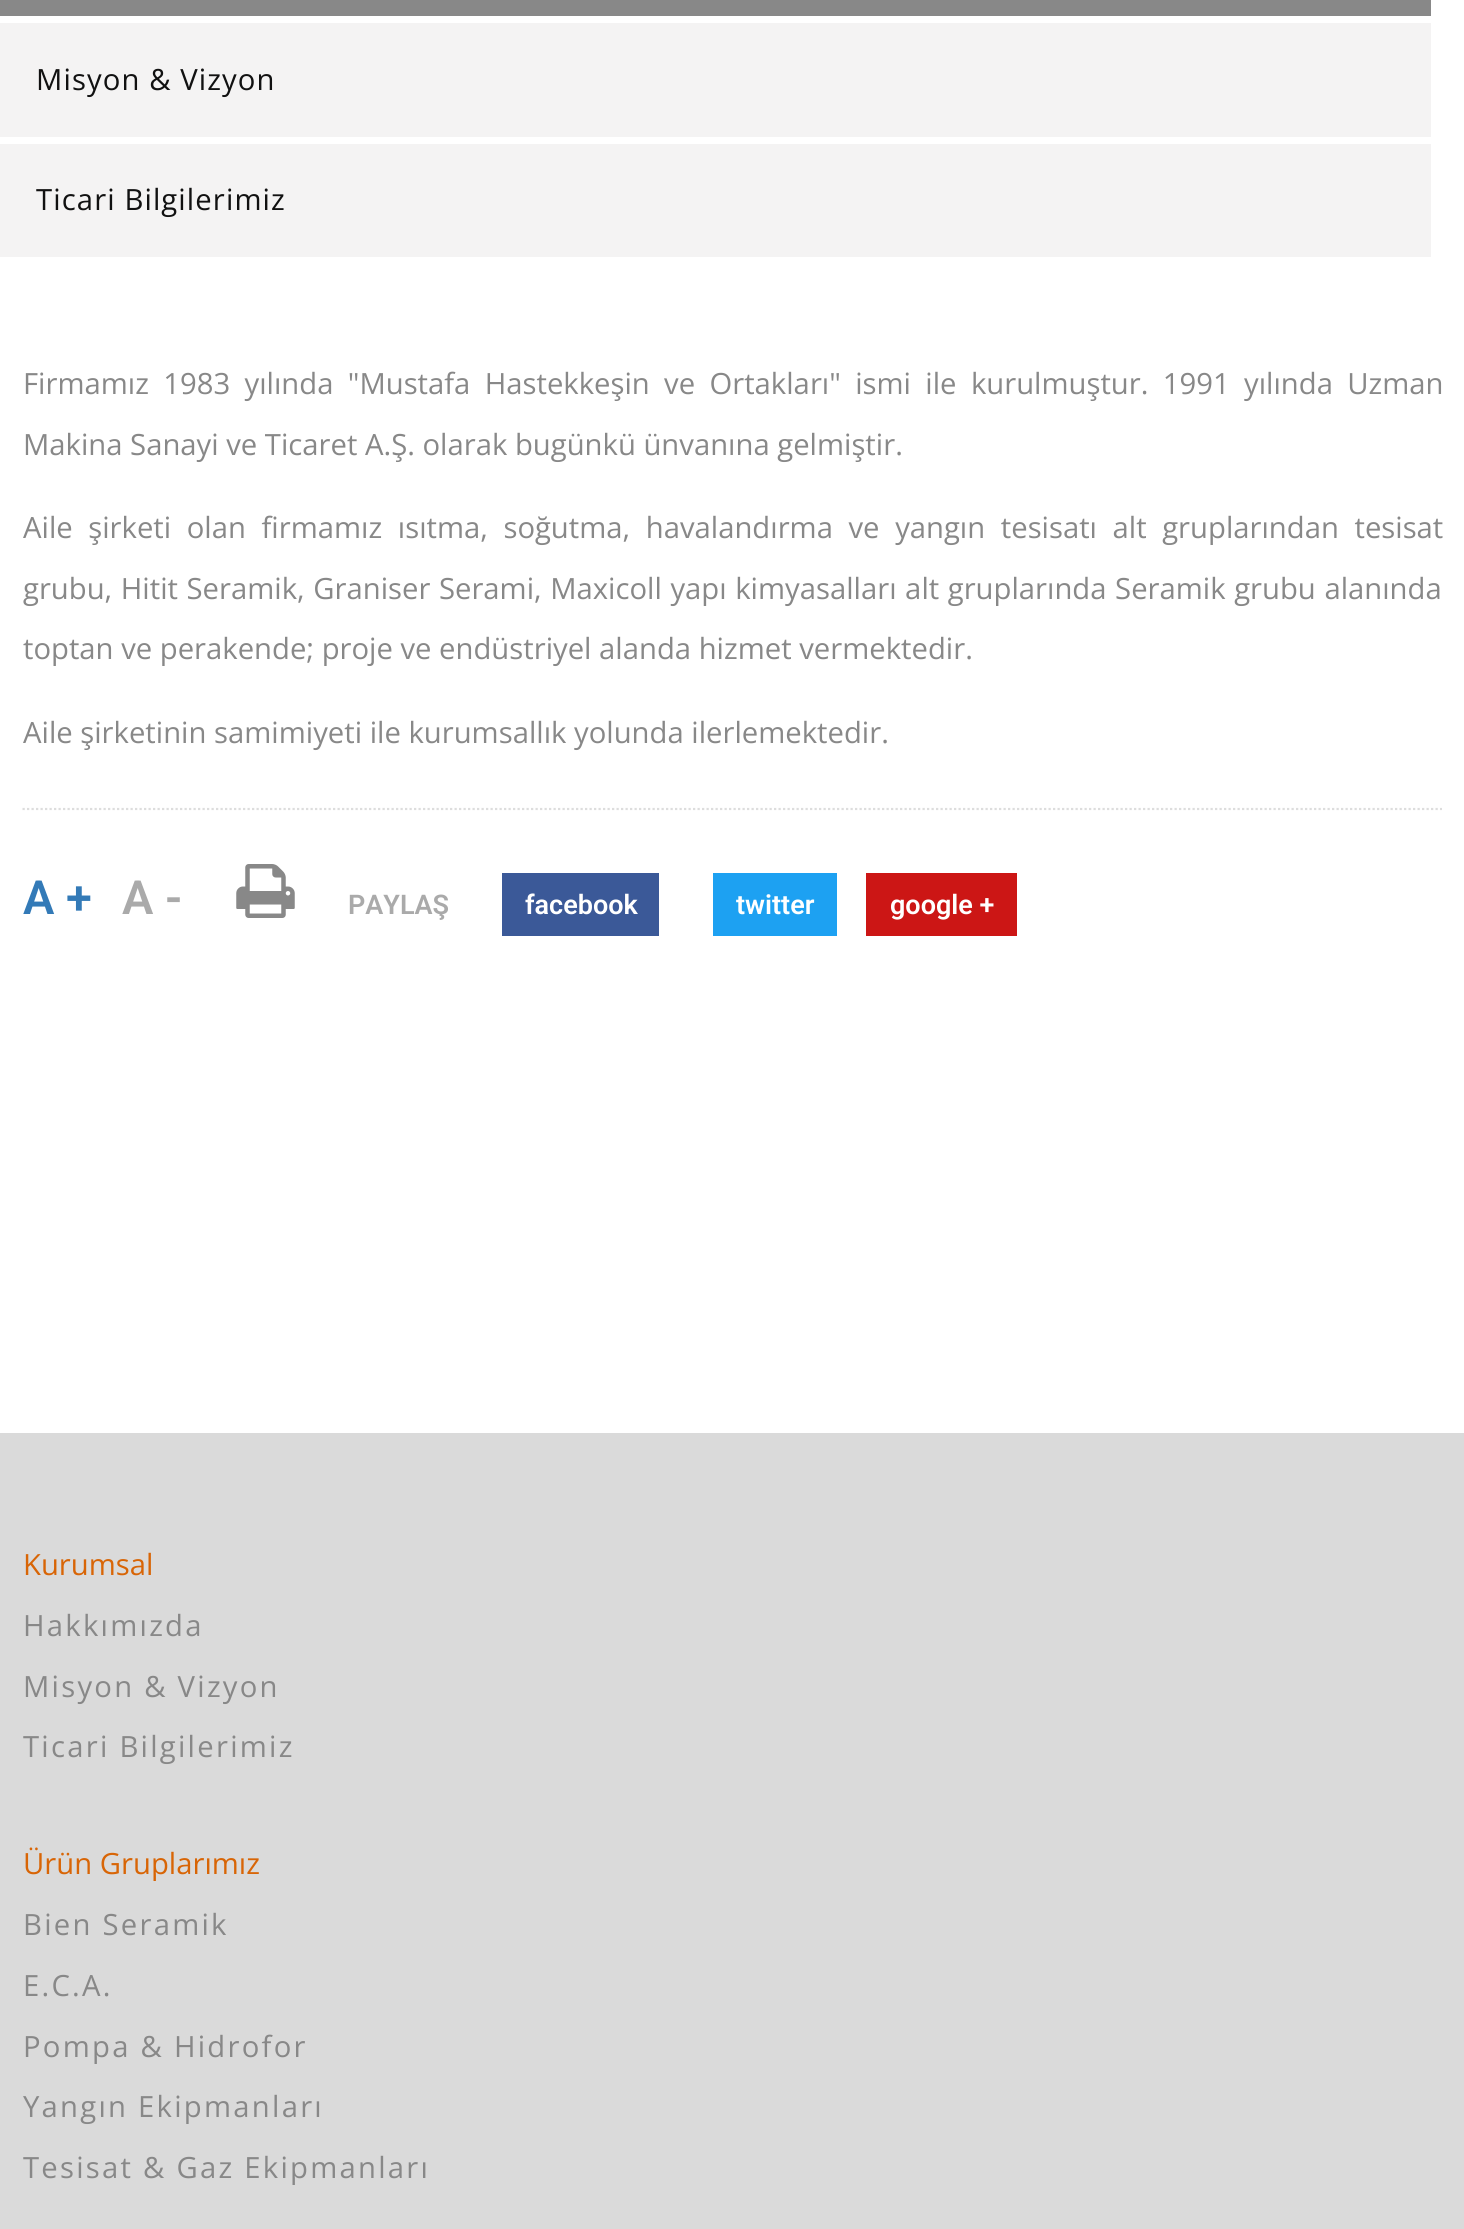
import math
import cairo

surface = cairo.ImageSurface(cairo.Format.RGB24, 1464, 2229)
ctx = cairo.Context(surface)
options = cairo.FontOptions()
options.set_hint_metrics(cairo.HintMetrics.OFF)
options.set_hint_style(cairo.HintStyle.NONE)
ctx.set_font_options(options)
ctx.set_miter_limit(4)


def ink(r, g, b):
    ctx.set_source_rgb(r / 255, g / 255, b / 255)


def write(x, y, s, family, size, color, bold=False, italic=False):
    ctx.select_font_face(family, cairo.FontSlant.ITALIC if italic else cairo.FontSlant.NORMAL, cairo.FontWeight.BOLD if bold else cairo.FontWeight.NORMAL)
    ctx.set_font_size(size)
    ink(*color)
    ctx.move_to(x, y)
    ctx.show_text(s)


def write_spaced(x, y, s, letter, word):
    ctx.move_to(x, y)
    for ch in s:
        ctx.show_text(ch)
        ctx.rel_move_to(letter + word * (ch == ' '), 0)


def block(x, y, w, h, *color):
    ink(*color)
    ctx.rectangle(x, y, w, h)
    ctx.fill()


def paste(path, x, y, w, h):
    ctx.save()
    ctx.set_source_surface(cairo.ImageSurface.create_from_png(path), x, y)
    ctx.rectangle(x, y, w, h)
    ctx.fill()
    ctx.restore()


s1 = dict(family="Open Sans", size=29.25, color=(136, 136, 136))
s2 = dict(family="Roboto SemiBold", size=47, color=(51, 122, 183))
s3 = dict(family="Roboto SemiBold", size=47, color=(170, 170, 170))
s4 = dict(family="Roboto SemiBold", size=27, color=(170, 170, 170))
s5 = dict(family="Roboto SemiBold", size=27, color=(255, 255, 255))
s6 = dict(family="Open Sans", size=29.25, color=(216, 101, 6))

ink(255, 255, 255)
ctx.paint()
block(0, 0, 1431, 16, 136, 136, 136)
block(0, 23, 1431, 114, 244, 243, 243)
ctx.select_font_face("Open Sans")
ctx.set_font_size(29.25)
ink(17, 17, 17)
write_spaced(36, 90, "Misyon & Vizyon", 1.1, 0)
block(0, 144, 1431, 113, 244, 243, 243)
ink(17, 17, 17)
write_spaced(36, 210, "Ticari Bilgilerimiz", 1.1, 0)
ink(136, 136, 136)
write_spaced(23, 394, "Firmamız 1983 yılında \"Mustafa Hastekkeşin ve Ortakları\" ismi ile kurulmuştur. 1991 yılında Uzman", 0, 6.75)
write(23, 455, "Makina Sanayi ve Ticaret A.Ş. olarak bugünkü ünvanına gelmiştir.", **s1)
write_spaced(23, 538, "Aile şirketi olan firmamız ısıtma, soğutma, havalandırma ve yangın tesisatı alt gruplarından tesisat", 0, 8)
write_spaced(23, 599, "grubu, Hitit Seramik, Graniser Serami, Maxicoll yapı kimyasalları alt gruplarında Seramik grubu alanında", 0, 1)
write(23, 659, "toptan ve perakende; proje ve endüstriyel alanda hizmet vermektedir.", **s1)
write(23, 743, "Aile şirketinin samimiyeti ile kurumsallık yolunda ilerlemektedir.", **s1)
ctx.new_path()
ctx.move_to(22.5, 809)
ctx.line_to(1442, 809)
ink(221, 221, 221)
ctx.set_line_width(2.2)
ctx.set_dash([2.25, 2.25])
ctx.stroke()
write(23, 914, "A +", **s2)
write(122, 914, "A -", **s3)
paste("pic1.png", 236, 864, 59, 54)
write(348, 914, "PAYLAŞ", **s4)
block(502, 873, 157, 63, 59, 89, 152)
write(525, 914, "facebook", **s5)
block(713, 873, 124, 63, 29, 161, 242)
write(736, 914, "twitter", **s5)
block(866, 873, 151, 63, 204, 22, 21)
write(890, 914, "google +", **s5)
block(0, 1433, 1464, 796, 218, 218, 218)
write(23, 1575, "Kurumsal", **s6)
ink(136, 136, 136)
write_spaced(23, 1636, "Hakkımızda", 2.25, 0)
write_spaced(23, 1697, "Misyon & Vizyon", 2.25, 0)
write_spaced(23, 1757, "Ticari Bilgilerimiz", 2.25, 0)
write(23, 1874, "Ürün Gruplarımız", **s6)
ink(136, 136, 136)
write_spaced(23, 1935, "Bien Seramik", 2.25, 0)
write_spaced(23, 1996, "E.C.A.", 2.25, 0)
write_spaced(23, 2057, "Pompa & Hidrofor", 2.25, 0)
write_spaced(23, 2117, "Yangın Ekipmanları", 2.25, 0)
write_spaced(23, 2178, "Tesisat & Gaz Ekipmanları", 2.25, 0)
surface.write_to_png("screenshot.png")
